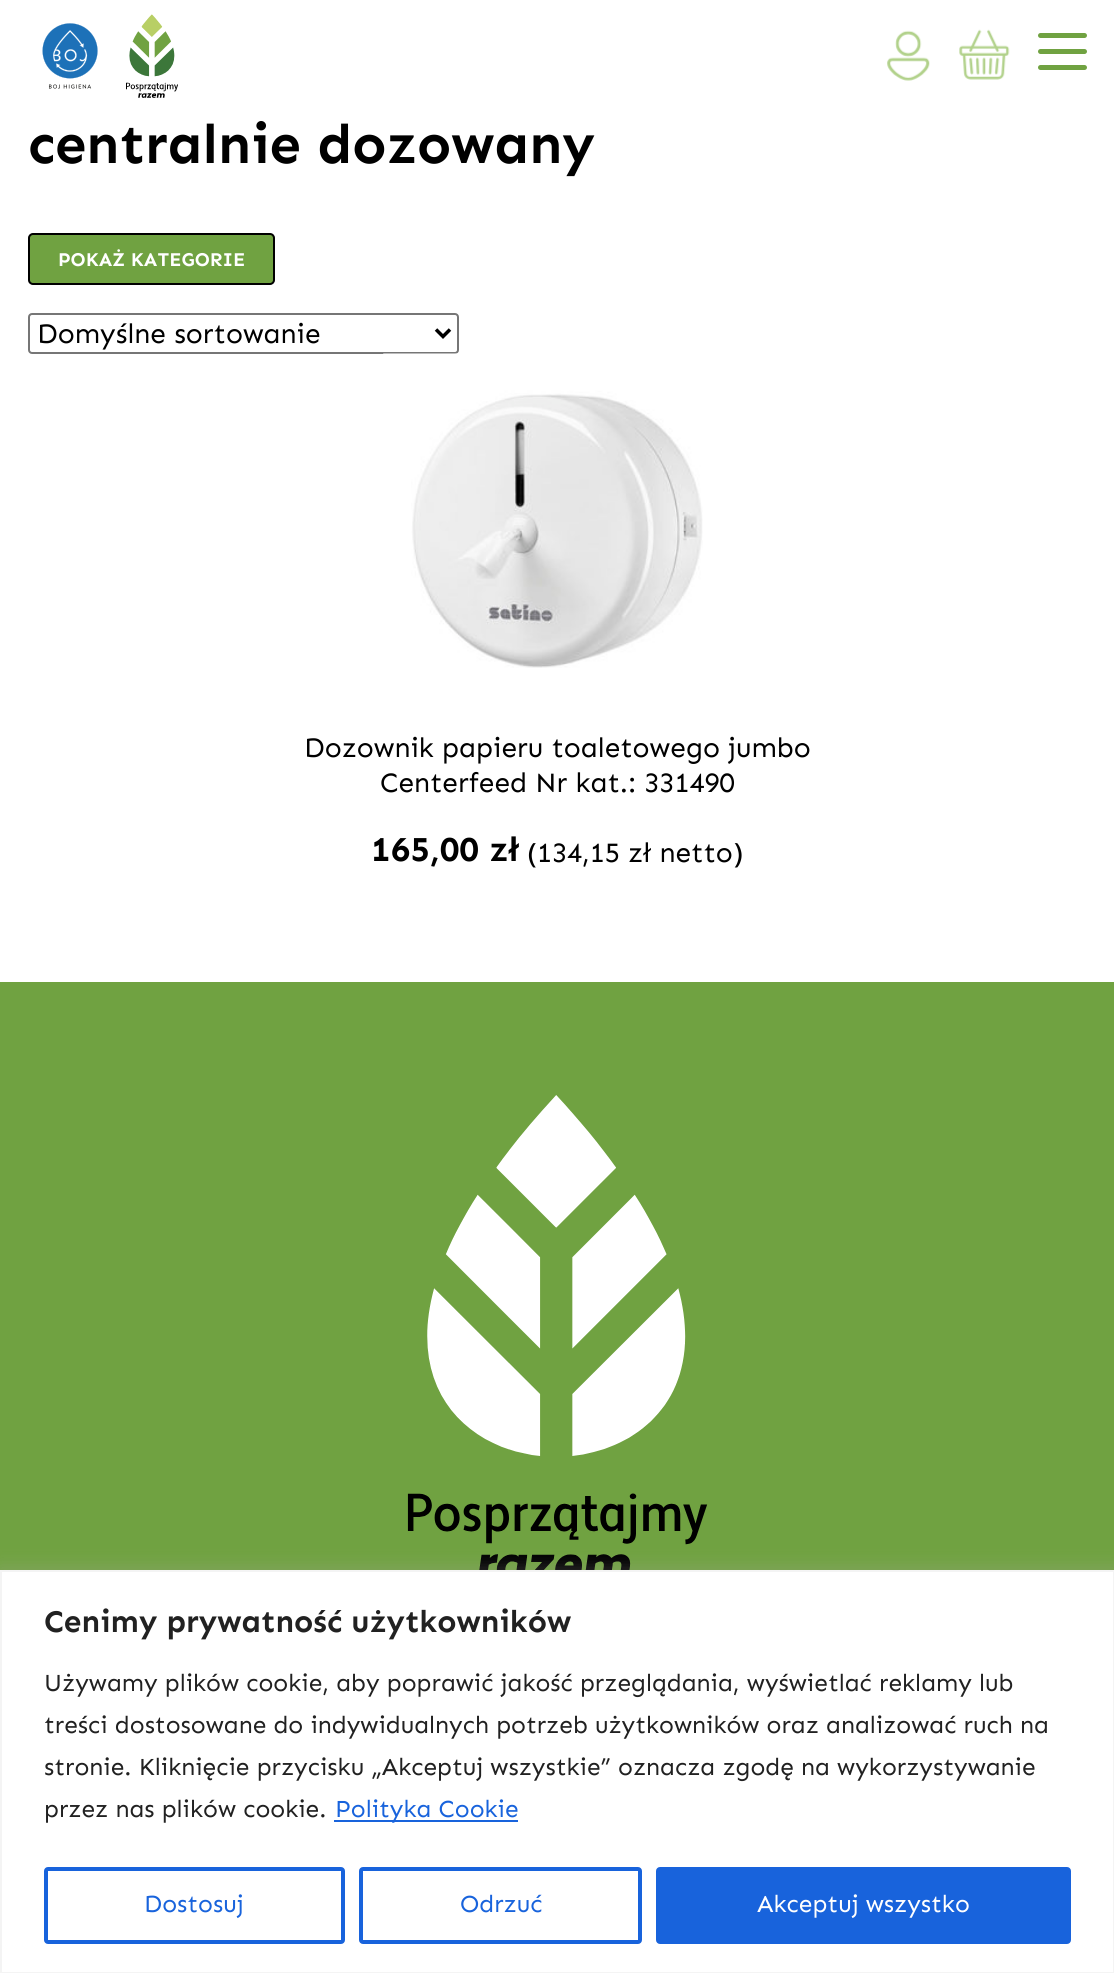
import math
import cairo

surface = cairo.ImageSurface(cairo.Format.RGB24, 1114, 1973)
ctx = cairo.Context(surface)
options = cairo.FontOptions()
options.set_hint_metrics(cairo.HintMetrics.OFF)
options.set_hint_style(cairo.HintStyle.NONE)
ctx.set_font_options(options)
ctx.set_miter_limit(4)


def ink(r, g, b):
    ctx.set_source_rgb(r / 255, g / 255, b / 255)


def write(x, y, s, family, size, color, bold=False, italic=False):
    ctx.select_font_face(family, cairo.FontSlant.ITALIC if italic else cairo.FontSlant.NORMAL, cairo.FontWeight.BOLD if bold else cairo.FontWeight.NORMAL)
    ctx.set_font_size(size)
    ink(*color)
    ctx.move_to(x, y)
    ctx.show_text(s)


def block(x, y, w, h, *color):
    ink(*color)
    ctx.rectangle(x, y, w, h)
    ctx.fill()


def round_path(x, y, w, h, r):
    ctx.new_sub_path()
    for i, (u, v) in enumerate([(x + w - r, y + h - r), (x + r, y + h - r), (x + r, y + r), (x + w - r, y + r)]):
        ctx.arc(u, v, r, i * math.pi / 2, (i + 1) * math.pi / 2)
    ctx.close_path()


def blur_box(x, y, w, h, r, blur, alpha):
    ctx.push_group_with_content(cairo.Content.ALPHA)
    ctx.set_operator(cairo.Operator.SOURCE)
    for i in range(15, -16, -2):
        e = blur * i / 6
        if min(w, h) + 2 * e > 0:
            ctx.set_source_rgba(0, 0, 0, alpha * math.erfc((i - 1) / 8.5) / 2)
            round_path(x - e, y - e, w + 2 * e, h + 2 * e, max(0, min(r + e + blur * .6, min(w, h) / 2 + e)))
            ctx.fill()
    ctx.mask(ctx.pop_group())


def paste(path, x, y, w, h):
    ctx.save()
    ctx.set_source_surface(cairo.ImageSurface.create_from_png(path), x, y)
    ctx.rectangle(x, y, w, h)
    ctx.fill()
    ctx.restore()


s1 = dict(family="Sen", size=56, color=(0, 0, 0), bold=True)
s2 = dict(family="Sen", size=19.5, color=(255, 255, 255), bold=True)
s3 = dict(family="Sen", size=28, color=(0, 0, 0))
s4 = dict(family="Sen", size=35, color=(0, 0, 0), bold=True)
s5 = dict(family="Sen", size=31.5, color=(33, 33, 33), bold=True)
s6 = dict(family="Sen", size=24.5, color=(33, 33, 33))
s7 = dict(family="Sen", size=24.5, color=(24, 99, 220))
s8 = dict(family="Sen", size=24.5, color=(255, 255, 255))

ink(255, 255, 255)
ctx.paint()
paste("pic1.png", 42, 23, 56, 66)
paste("pic2.png", 126, 14, 52, 84)
paste("pic3.png", 887, 30, 43, 51)
paste("pic4.png", 959, 29, 51, 51)
ink(112, 162, 65)
round_path(1038, 33, 49, 5, 2.5)
ctx.fill()
round_path(1038, 49, 49, 5, 2.5)
ctx.fill()
round_path(1038, 65, 49, 5, 2.5)
ctx.fill()
write(28, 163, "centralnie dozowany", **s1)
ink(112, 162, 65)
round_path(29, 234, 245, 50, 4)
ctx.fill_preserve()
ink(0, 0, 0)
ctx.stroke()
write(58, 266, "POKAŻ KATEGORIE", **s2)
round_path(29, 314, 429, 39, 3)
ink(118, 118, 118)
ctx.stroke()
ctx.new_path()
ctx.move_to(436, 329.5)
ctx.line_to(443, 336.5)
ctx.line_to(450, 329.5)
ink(0, 0, 0)
ctx.set_line_width(3.5)
ctx.stroke()
write(37, 343, "Domyślne sortowanie", **s3)
paste("pic5.png", 383, 353, 320, 315)
write(304, 757, "Dozownik papieru toaletowego jumbo", **s3)
write(380, 792, "Centerfeed Nr kat.: 331490", **s3)
write(371, 861, "165,00 zł", **s4)
write(527, 862, "(134,15 zł netto)", **s3)
block(0, 982, 1114, 588, 112, 162, 65)
paste("pic6.png", 407, 1095, 301, 475)
ink(172, 171, 171)
blur_box(0, 1568, 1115, 404, 0, 9, 0.3)
ink(255, 255, 255)
ctx.rectangle(1, 1571, 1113, 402)
ctx.fill_preserve()
ink(244, 244, 244)
ctx.set_line_width(2)
ctx.stroke()
write(44, 1632, "Cenimy prywatność użytkowników", **s5)
write(44, 1691, "Używamy plików cookie, aby poprawić jakość przeglądania, wyświetlać reklamy lub", **s6)
write(44, 1733, "treści dostosowane do indywidualnych potrzeb użytkowników oraz analizować ruch na", **s6)
write(44, 1775, "stronie. Kliknięcie przycisku „Akceptuj wszystkie” oznacza zgodę na wykorzystywanie", **s6)
write(44, 1817, "przez nas plików cookie.", **s6)
block(334, 1820, 184, 2, 24, 99, 220)
write(335, 1817, "Polityka Cookie", **s7)
round_path(46, 1869, 297, 73, 2)
ctx.set_line_width(4)
ctx.stroke()
write(144, 1912, "Dostosuj", **s7)
round_path(361, 1869, 279, 73, 2)
ctx.stroke()
write(460, 1912, "Odrzuć", **s7)
round_path(658, 1869, 411, 73, 2)
ctx.fill_preserve()
ctx.stroke()
write(757, 1912, "Akceptuj wszystko", **s8)
surface.write_to_png("screenshot.png")
